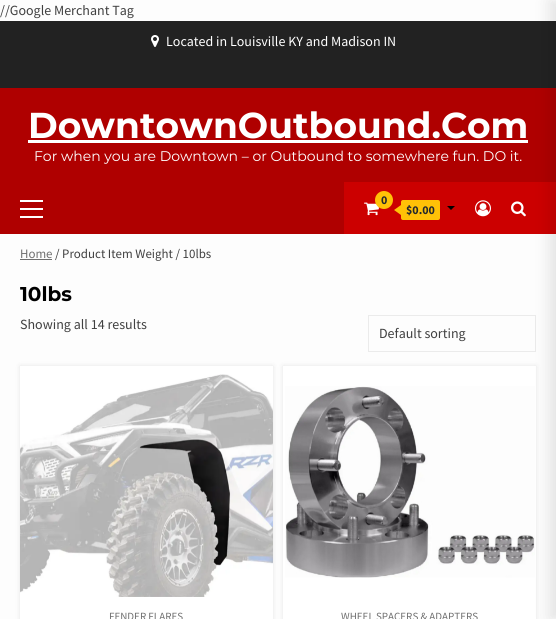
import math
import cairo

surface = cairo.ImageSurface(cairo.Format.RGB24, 556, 619)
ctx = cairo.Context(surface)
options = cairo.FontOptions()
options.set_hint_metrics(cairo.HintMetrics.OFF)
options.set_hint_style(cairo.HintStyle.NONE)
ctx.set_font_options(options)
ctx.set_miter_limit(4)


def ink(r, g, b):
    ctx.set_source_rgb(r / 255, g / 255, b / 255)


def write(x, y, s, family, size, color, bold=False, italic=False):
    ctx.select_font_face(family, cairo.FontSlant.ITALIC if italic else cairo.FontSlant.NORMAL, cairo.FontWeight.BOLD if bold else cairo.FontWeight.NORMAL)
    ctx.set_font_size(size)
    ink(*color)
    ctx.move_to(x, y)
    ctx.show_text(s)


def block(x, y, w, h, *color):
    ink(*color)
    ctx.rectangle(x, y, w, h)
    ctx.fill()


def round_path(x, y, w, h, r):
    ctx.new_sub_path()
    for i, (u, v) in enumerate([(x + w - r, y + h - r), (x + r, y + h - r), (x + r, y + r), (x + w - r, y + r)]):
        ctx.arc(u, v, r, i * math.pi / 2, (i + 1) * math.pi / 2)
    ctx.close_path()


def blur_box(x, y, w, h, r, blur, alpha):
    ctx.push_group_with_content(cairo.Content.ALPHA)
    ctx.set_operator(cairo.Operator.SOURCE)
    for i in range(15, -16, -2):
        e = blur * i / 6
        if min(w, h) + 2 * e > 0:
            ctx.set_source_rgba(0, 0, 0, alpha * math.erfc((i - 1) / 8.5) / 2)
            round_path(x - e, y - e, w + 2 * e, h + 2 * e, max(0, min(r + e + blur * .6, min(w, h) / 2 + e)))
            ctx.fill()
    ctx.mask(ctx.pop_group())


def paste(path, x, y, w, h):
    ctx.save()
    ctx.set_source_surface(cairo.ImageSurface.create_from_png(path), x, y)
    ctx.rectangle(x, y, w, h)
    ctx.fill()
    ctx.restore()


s1 = dict(family="Source Sans Pro", size=14, color=(64, 64, 64))
s2 = dict(family="Source Sans Pro", size=14, color=(255, 255, 255))
s3 = dict(family="Montserrat", size=36, color=(255, 255, 255), bold=True)
s4 = dict(family="Montserrat", size=14, color=(255, 255, 255))
s5 = dict(family="Source Sans Pro", size=12, color=(35, 40, 45), bold=True)
s6 = dict(family="Source Sans Pro", size=12.9, color=(111, 111, 111))
s7 = dict(family="Source Sans Pro", size=12.9, color=(64, 64, 64))
s8 = dict(family="Montserrat", size=20, color=(0, 0, 0), bold=True)
s9 = dict(family="Source Sans Pro", size=11, color=(111, 111, 111))

ink(253, 253, 253)
ctx.paint()
write(0, 15, "//Google Merchant Tag", **s1)
block(0, 21, 556, 67, 34, 34, 34)
block(0, 88, 556, 146, 175, 0, 0)
block(28, 140, 500, 3, 255, 255, 255)
block(344, 182, 212, 52, 204, 0, 0)
paste("pic4.png", 511, 201, 15, 16)
ctx.rectangle(368.5, 315.5, 167, 36)
ink(235, 235, 235)
ctx.set_line_width(1)
ctx.stroke()
ink(0, 0, 0)
blur_box(283, 366, 253, 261, 0, 2.5, 0.1)
block(283, 366, 253, 253, 255, 255, 255)
paste("pic6.png", 285, 386, 250, 192)
ink(0, 0, 0)
blur_box(549, 0, 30, 619, 0, 7.5, 0.1)
paste("pic1.png", 151, 35, 8, 12)
write(166, 46, "Located in Louisville KY and Madison IN", **s2)
write(28, 138, "DowntownOutbound.Com", **s3)
write(34, 161, "For when you are Downtown – or Outbound to somewhere fun. DO it.", **s4)
block(20, 208, 23, 2, 255, 255, 255)
block(20, 200, 23, 2, 255, 255, 255)
block(20, 216, 23, 2, 255, 255, 255)
paste("pic2.png", 364, 202, 15, 14)
ink(255, 193, 7)
ctx.arc(384, 200, 9, 0, 2 * math.pi)
ctx.fill()
write(381, 204, "0", **s5)
ink(255, 193, 7)
round_path(401, 200, 39, 20, 2)
ctx.fill()
ctx.new_path()
ctx.move_to(401, 205)
ctx.line_to(401, 215)
ctx.line_to(394, 210)
ctx.close_path()
ctx.fill()
write(406, 214, "$0.00", **s5)
ink(0, 0, 0)
ctx.new_path()
ctx.move_to(447, 206)
ctx.line_to(455, 206)
ctx.line_to(451, 210)
ctx.close_path()
ctx.fill()
paste("pic3.png", 475, 200, 16, 17)
write(20, 258, "Home", **s6)
block(20, 259, 32, 1, 111, 111, 111)
write(55, 258, "/ Product Item Weight / 10lbs", **s7)
write(20, 301, "10lbs", **s8)
write(20, 329, "Showing all 14 results", **s1)
write(379, 338, "Default sorting", **s1)
ink(0, 0, 0)
blur_box(20, 366, 253, 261, 0, 2.5, 0.1)
block(20, 366, 253, 253, 255, 255, 255)
paste("pic5.png", 20, 374, 253, 223)
write(109, 620, "FENDER FLARES", **s9)
write(341, 620, "WHEEL SPACERS & ADAPTERS", **s9)
surface.write_to_png("screenshot.png")
